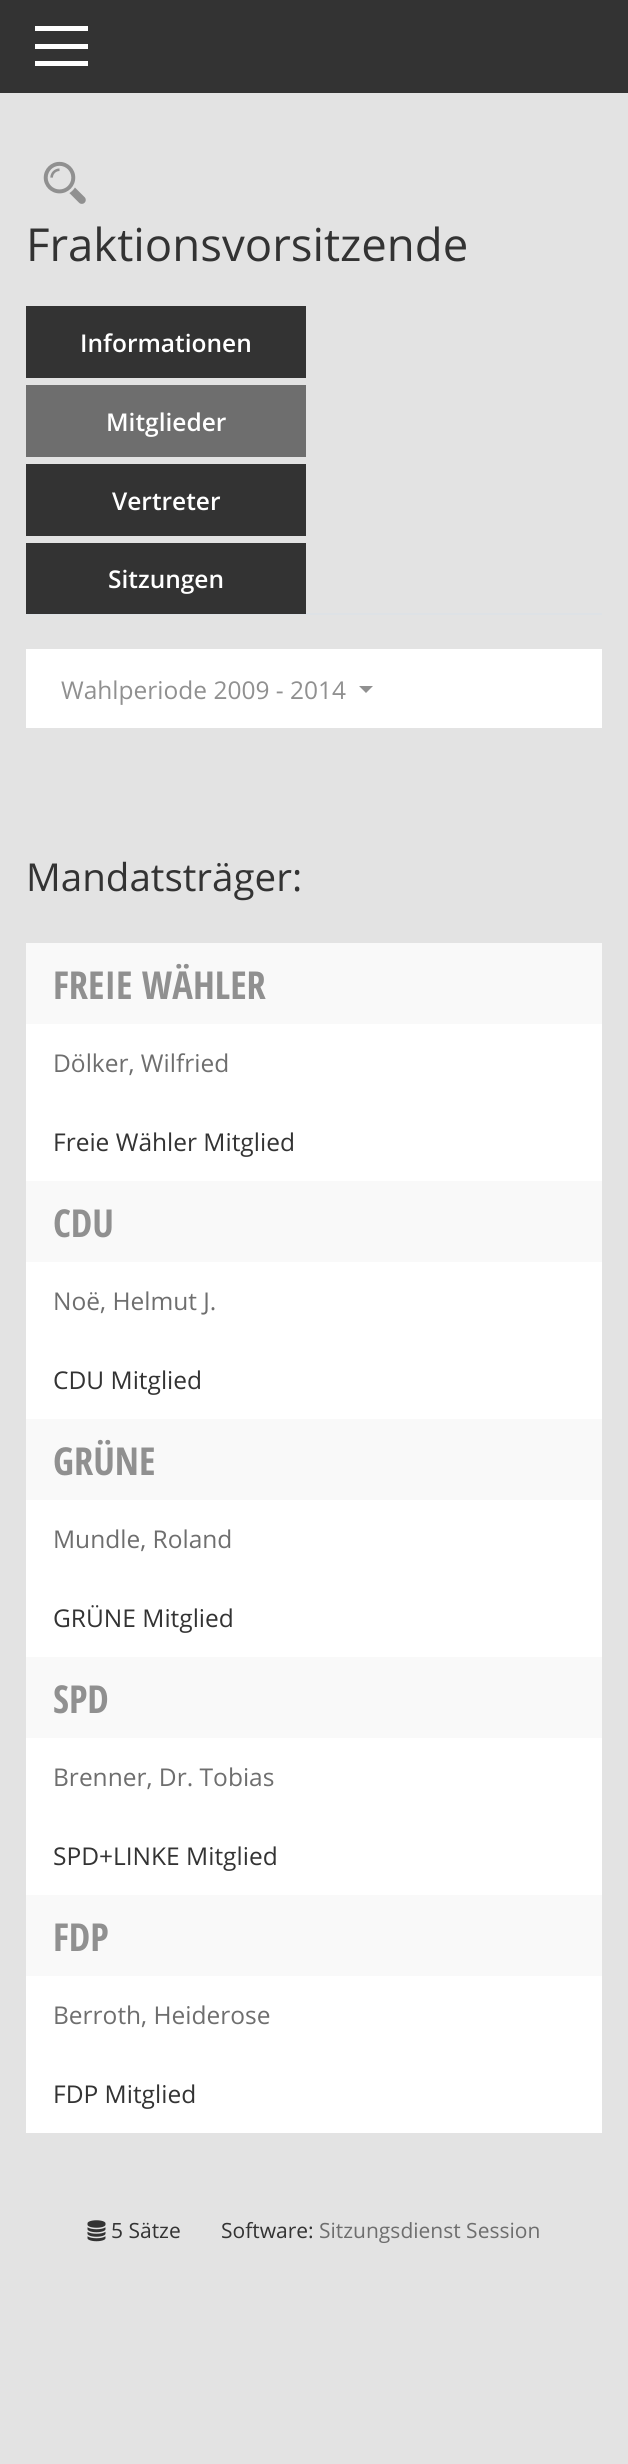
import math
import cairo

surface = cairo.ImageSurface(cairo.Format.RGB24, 628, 2464)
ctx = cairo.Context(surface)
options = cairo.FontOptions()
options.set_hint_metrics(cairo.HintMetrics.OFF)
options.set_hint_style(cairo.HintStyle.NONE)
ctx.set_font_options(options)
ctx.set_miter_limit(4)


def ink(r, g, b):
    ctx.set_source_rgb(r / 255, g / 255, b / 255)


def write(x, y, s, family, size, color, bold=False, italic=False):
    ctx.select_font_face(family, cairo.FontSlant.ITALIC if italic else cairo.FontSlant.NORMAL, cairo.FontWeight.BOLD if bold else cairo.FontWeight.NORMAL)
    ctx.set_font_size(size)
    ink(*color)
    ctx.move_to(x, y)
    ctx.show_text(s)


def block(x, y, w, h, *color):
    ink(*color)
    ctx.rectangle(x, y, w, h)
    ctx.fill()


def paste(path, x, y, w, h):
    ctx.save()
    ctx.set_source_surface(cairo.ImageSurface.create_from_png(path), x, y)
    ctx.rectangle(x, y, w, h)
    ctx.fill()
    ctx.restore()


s1 = dict(family="Open Sans", size=45.5, color=(51, 51, 51))
s2 = dict(family="Open Sans SemiBold", size=24.5, color=(255, 255, 255))
s3 = dict(family="Open Sans", size=24.5, color=(144, 144, 144))
s4 = dict(family="Open Sans", size=38.5, color=(51, 51, 51))
s5 = dict(family="Open Sans Condensed", size=38.5, color=(144, 144, 144), bold=True)
s6 = dict(family="Open Sans", size=24.5, color=(110, 110, 110))
s7 = dict(family="Open Sans", size=24.5, color=(51, 51, 51))
s8 = dict(family="Open Sans", size=21, color=(51, 51, 51))
s9 = dict(family="Open Sans", size=21, color=(110, 110, 110))

ink(227, 227, 227)
ctx.paint()
block(0, 0, 628, 93, 51, 51, 51)
block(35, 26, 53, 5, 255, 255, 255)
block(35, 44, 53, 5, 255, 255, 255)
block(35, 61, 53, 5, 255, 255, 255)
paste("pic1.png", 43, 161, 43, 43)
write(26, 261, "Fraktionsvorsitzende", **s1)
block(26, 613, 576, 2, 222, 226, 230)
block(26, 306, 280, 72, 51, 51, 51)
write(80, 352, "Informationen", **s2)
block(26, 385, 280, 72, 110, 110, 110)
write(106, 431, "Mitglieder", **s2)
block(26, 464, 280, 72, 51, 51, 51)
write(112, 510, "Vertreter", **s2)
block(26, 543, 280, 71, 51, 51, 51)
write(108, 588, "Sitzungen", **s2)
block(26, 649, 576, 79, 255, 255, 255)
write(61, 699, "Wahlperiode 2009 - 2014", **s3)
ctx.new_path()
ctx.move_to(359, 686)
ctx.line_to(373, 686)
ctx.line_to(366, 693)
ctx.close_path()
ctx.fill()
write(26, 891, "Mandatsträger:", **s4)
block(26, 1024, 576, 1109, 255, 255, 255)
block(26, 943, 576, 81, 249, 249, 249)
write(53, 999, "FREIE WÄHLER", **s5)
write(53, 1072, "Dölker, Wilfried", **s6)
write(53, 1151, "Freie Wähler Mitglied", **s7)
block(26, 1181, 576, 81, 249, 249, 249)
write(53, 1237, "CDU", **s5)
write(53, 1310, "Noë, Helmut J.", **s6)
write(53, 1389, "CDU Mitglied", **s7)
block(26, 1419, 576, 81, 249, 249, 249)
write(53, 1475, "GRÜNE", **s5)
write(53, 1548, "Mundle, Roland", **s6)
write(53, 1627, "GRÜNE Mitglied", **s7)
block(26, 1657, 576, 81, 249, 249, 249)
write(53, 1713, "SPD", **s5)
write(53, 1786, "Brenner, Dr. Tobias", **s6)
write(53, 1865, "SPD+LINKE Mitglied", **s7)
block(26, 1895, 576, 81, 249, 249, 249)
write(53, 1951, "FDP", **s5)
write(53, 2024, "Berroth, Heiderose", **s6)
write(53, 2103, "FDP Mitglied", **s7)
paste("pic2.png", 87, 2220, 19, 22)
write(111, 2238, "5 Sätze", **s8)
write(221, 2238, "Software:", **s8)
write(319, 2238, "Sitzungsdienst Session", **s9)
surface.write_to_png("screenshot.png")
